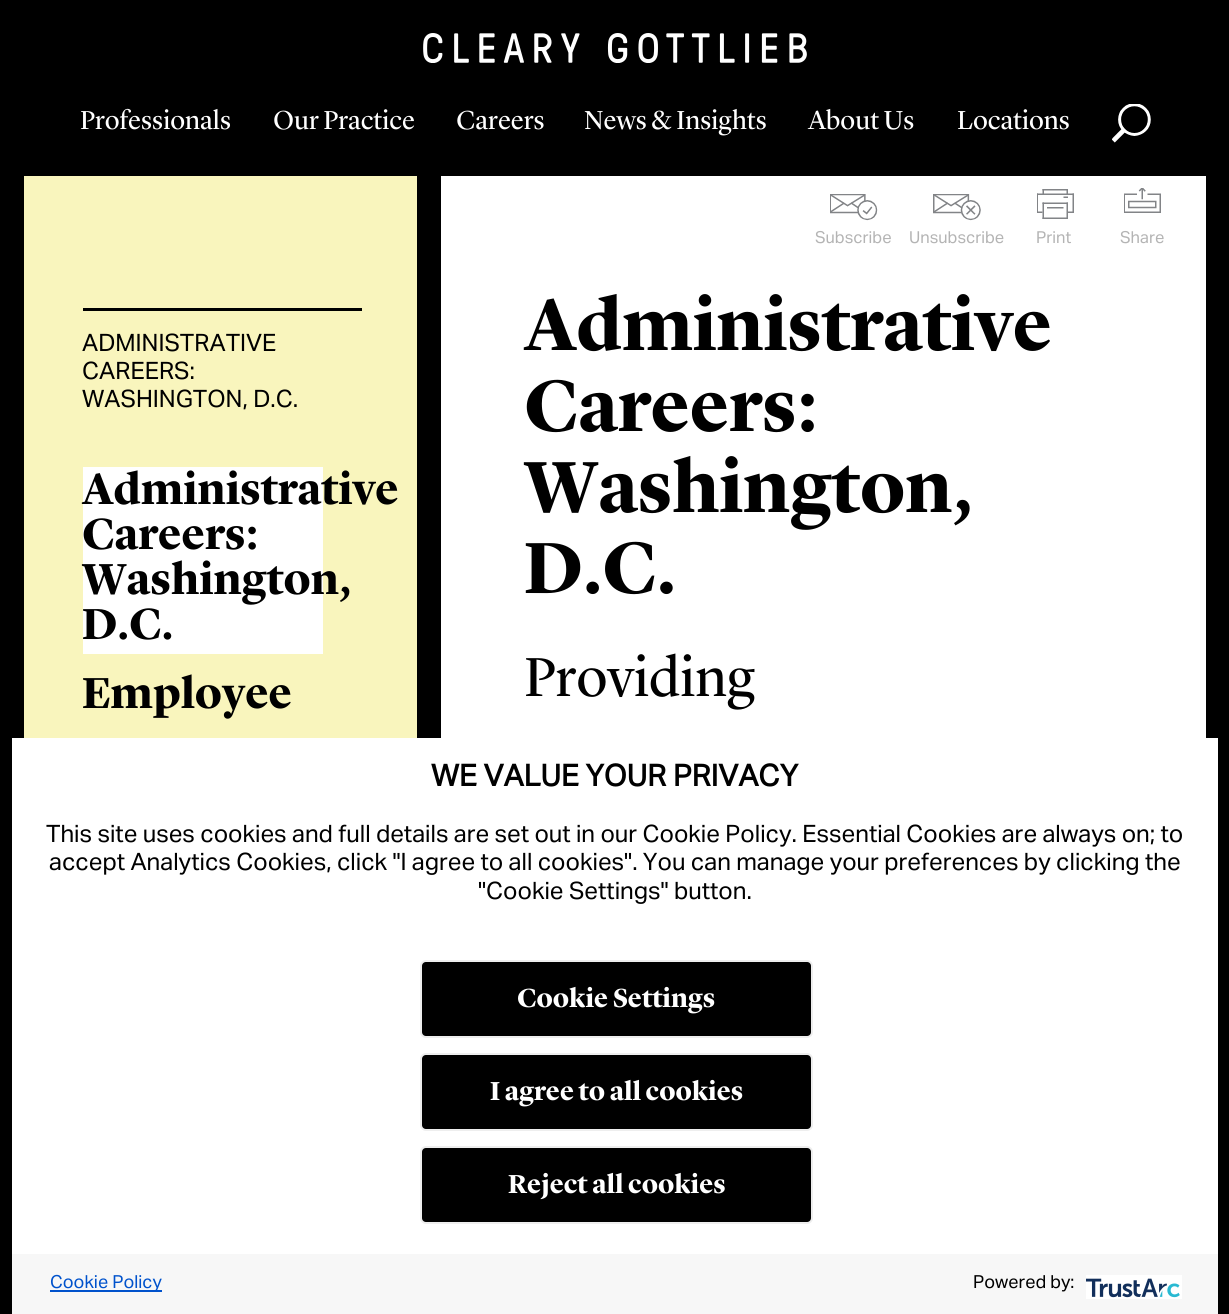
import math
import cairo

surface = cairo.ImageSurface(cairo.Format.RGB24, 1229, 1314)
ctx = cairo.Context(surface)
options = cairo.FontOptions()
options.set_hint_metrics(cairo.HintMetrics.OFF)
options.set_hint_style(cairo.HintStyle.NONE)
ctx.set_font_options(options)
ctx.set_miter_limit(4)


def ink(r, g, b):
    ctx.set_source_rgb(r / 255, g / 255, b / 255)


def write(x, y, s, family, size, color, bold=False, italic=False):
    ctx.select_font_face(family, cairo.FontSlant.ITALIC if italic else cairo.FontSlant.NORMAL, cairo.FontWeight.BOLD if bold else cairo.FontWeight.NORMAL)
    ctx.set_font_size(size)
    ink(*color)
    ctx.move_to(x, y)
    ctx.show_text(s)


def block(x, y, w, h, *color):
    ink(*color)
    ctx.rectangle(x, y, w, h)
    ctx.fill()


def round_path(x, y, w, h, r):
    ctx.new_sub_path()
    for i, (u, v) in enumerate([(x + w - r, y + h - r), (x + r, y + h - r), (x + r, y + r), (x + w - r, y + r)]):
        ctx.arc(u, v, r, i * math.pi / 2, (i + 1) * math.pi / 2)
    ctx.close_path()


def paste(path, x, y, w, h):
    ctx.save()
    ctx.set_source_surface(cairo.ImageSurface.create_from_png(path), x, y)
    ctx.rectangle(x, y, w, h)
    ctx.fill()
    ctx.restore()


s1 = dict(family="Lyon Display", size=27, color=(255, 255, 255))
s2 = dict(family="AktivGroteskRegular", size=24, color=(0, 0, 0))
s3 = dict(family="Lyon Display", size=45, color=(0, 0, 0), bold=True)
s4 = dict(family="AktivGroteskRegular", size=16.5, color=(180, 180, 180))
s5 = dict(family="Lyon Display", size=75, color=(0, 0, 0), bold=True)
s6 = dict(family="Lyon Display", size=57, color=(0, 0, 0))
s7 = dict(family="AktivGroteskRegular", size=30, color=(0, 0, 0), bold=True)
s8 = dict(family="Lyon Display", size=27, color=(255, 255, 255), bold=True)
s9 = dict(family="AktivGroteskRegular", size=18, color=(0, 82, 204))
s10 = dict(family="AktivGroteskRegular", size=18, color=(0, 0, 0))

ink(0, 0, 0)
ctx.paint()
paste("pic1.png", 423, 33, 384, 30)
write(80, 129, "Professionals", **s1)
write(273, 129, "Our Practice", **s1)
write(456, 129, "Careers", **s1)
write(584, 129, "News & Insights", **s1)
write(808, 129, "About Us", **s1)
write(957, 129, "Locations", **s1)
paste("pic2.png", 1112, 104, 39, 39)
block(24, 176, 393, 562, 249, 245, 189)
block(83, 308, 279, 3, 0, 0, 0)
write(82, 351, "ADMINISTRATIVE", **s2)
write(82, 379, "CAREERS:", **s2)
write(82, 407, "WASHINGTON, D.C.", **s2)
block(83, 467, 240, 187, 255, 255, 255)
write(82, 504, "Administrative", **s3)
write(82, 549, "Careers:", **s3)
write(82, 594, "Washington,", **s3)
write(82, 639, "D.C.", **s3)
write(82, 708, "Employee", **s3)
block(441, 176, 765, 562, 255, 255, 255)
paste("pic3.png", 830, 194, 48, 27)
write(815, 243, "Subscribe", **s4)
paste("pic4.png", 933, 194, 48, 27)
write(909, 243, "Unsubscribe", **s4)
paste("pic5.png", 1037, 189, 37, 30)
write(1036, 243, "Print", **s4)
paste("pic6.png", 1124, 188, 37, 25)
write(1120, 243, "Share", **s4)
write(524, 350, "Administrative", **s5)
write(524, 431, "Careers:", **s5)
write(524, 512, "Washington,", **s5)
write(524, 593, "D.C.", **s5)
write(524, 696, "Providing", **s6)
block(12, 738, 1206, 516, 255, 255, 255)
write(431, 786, "WE VALUE YOUR PRIVACY", **s7)
write(46, 842, "This site uses cookies and full details are set out in our Cookie Policy. Essential Cookies are always on; to", **s2)
write(49, 870, "accept Analytics Cookies, click \"I agree to all cookies\". You can manage your preferences by clicking the", **s2)
write(478, 899, "\"Cookie Settings\" button.", **s2)
round_path(421, 961, 391, 76, 5)
ctx.fill_preserve()
ink(238, 238, 238)
ctx.stroke()
write(517, 1007, "Cookie Settings", **s8)
ink(0, 0, 0)
round_path(421, 1054, 391, 76, 5)
ctx.fill_preserve()
ink(238, 238, 238)
ctx.stroke()
write(490, 1100, "I agree to all cookies", **s8)
ink(0, 0, 0)
round_path(421, 1147, 391, 76, 5)
ctx.fill_preserve()
ink(238, 238, 238)
ctx.stroke()
write(508, 1193, "Reject all cookies", **s8)
block(12, 1254, 1206, 60, 247, 247, 247)
block(50, 1290, 112, 2, 0, 82, 204)
write(50, 1288, "Cookie Policy", **s9)
write(973, 1288, "Powered by:", **s10)
paste("pic7.png", 1086, 1275, 96, 24)
surface.write_to_png("screenshot.png")
